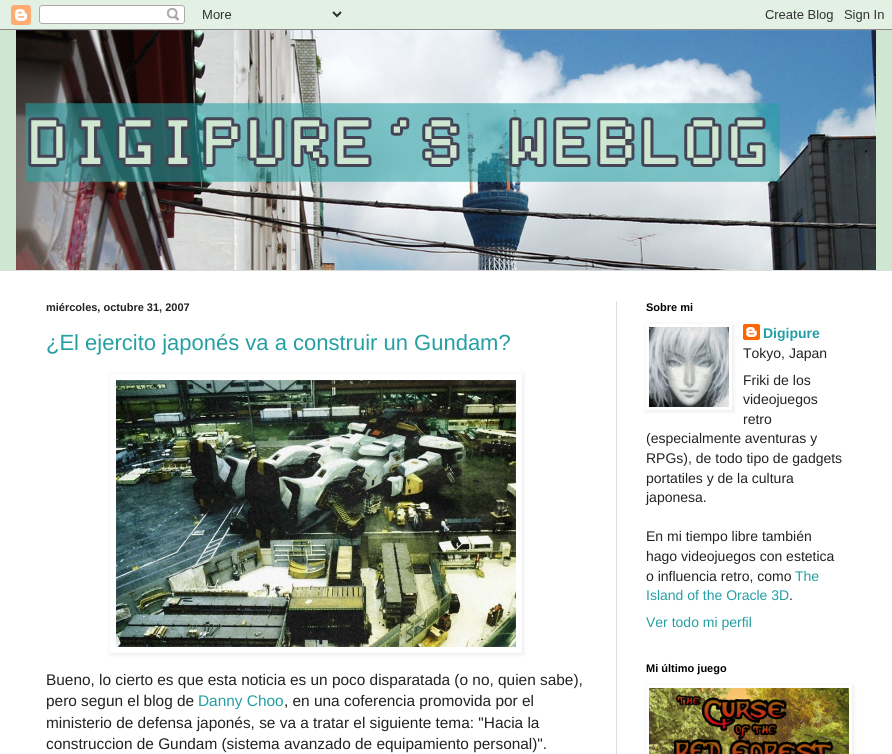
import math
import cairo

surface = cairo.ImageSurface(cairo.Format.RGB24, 892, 754)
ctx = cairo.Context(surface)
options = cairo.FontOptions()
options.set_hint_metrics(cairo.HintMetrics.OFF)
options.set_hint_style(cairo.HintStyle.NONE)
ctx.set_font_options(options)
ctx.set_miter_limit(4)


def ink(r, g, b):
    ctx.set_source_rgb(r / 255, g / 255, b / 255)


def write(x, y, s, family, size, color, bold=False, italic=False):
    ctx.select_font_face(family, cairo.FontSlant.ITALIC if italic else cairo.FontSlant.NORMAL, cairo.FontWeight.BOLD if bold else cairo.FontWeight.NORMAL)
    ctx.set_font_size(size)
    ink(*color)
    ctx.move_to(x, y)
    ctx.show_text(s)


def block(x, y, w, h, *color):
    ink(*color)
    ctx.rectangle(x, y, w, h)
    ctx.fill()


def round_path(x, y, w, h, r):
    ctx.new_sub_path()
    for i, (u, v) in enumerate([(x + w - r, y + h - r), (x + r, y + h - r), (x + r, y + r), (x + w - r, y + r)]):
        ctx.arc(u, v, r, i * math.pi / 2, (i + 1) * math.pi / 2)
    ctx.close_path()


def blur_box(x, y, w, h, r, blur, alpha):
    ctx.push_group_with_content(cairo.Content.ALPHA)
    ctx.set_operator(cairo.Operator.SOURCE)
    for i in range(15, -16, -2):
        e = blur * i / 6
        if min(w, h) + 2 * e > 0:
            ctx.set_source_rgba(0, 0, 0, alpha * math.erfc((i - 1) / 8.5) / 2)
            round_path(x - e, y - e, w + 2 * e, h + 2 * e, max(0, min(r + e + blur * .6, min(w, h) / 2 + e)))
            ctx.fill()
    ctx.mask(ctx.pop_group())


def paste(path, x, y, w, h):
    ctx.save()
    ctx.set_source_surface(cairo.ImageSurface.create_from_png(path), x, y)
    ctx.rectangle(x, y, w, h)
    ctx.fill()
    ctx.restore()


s1 = dict(family="Liberation Sans", size=11, color=(34, 34, 34), bold=True)
s2 = dict(family="Liberation Sans", size=22, color=(36, 159, 163))
s3 = dict(family="Liberation Sans", size=15.4, color=(34, 34, 34))
s4 = dict(family="Liberation Sans", size=15.4, color=(36, 159, 163))
s5 = dict(family="Liberation Sans", size=11, color=(0, 0, 0), bold=True)
s6 = dict(family="Liberation Sans", size=14, color=(36, 159, 163), bold=True)
s7 = dict(family="Liberation Sans", size=14, color=(34, 34, 34))
s8 = dict(family="Liberation Sans", size=14, color=(36, 159, 163))

ink(207, 231, 209)
ctx.paint()
paste("pic1.png", 0, 0, 892, 30)
paste("pic2.png", 16, 30, 860, 240)
block(0, 271, 892, 483, 255, 255, 255)
block(0, 270, 892, 1, 221, 221, 221)
block(616, 301, 1, 453, 221, 221, 221)
write(46, 311, "miércoles, octubre 31, 2007", **s1)
write(46, 350, "¿El ejercito japonés va a construir un Gundam?", **s2)
ctx.save()
ctx.set_fill_rule(cairo.FillRule.EVEN_ODD)
ctx.new_path()
ctx.move_to(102, 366)
ctx.line_to(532, 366)
ctx.line_to(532, 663)
ctx.line_to(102, 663)
ctx.close_path()
ctx.move_to(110, 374)
ctx.line_to(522, 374)
ctx.line_to(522, 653)
ctx.line_to(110, 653)
ctx.close_path()
ctx.clip()
ink(0, 0, 0)
blur_box(111, 375, 412, 279, 0, 2.5, 0.1)
ctx.restore()
paste("pic3.png", 116, 380, 400, 267)
write(46, 685, "Bueno, lo cierto es que esta noticia es un poco disparatada (o no, quien sabe),", **s3)
write(46, 706, "pero segun el blog de", **s3)
write(198, 706, "Danny Choo", **s4)
write(284, 706, ", en una coferencia promovida por el", **s3)
write(46, 728, "ministerio de defensa japonés, se va a tratar el siguiente tema: \"Hacia la", **s3)
write(46, 749, "construccion de Gundam (sistema avanzado de equipamiento personal)\".", **s3)
write(646, 311, "Sobre mi", **s5)
ctx.save()
ctx.set_fill_rule(cairo.FillRule.EVEN_ODD)
ctx.new_path()
ctx.move_to(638, 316)
ctx.line_to(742, 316)
ctx.line_to(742, 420)
ctx.line_to(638, 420)
ctx.close_path()
ctx.move_to(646, 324)
ctx.line_to(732, 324)
ctx.line_to(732, 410)
ctx.line_to(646, 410)
ctx.close_path()
ctx.clip()
ink(0, 0, 0)
blur_box(647, 325, 86, 86, 0, 2.5, 0.1)
ctx.restore()
paste("pic4.png", 649, 327, 80, 80)
paste("pic5.png", 743, 324, 17, 16)
write(763, 338, "Digipure", **s6)
write(743, 358, "Tokyo, Japan", **s7)
write(743, 385, "Friki de los", **s7)
write(743, 404, "videojuegos", **s7)
write(743, 424, "retro", **s7)
write(646, 443, "(especialmente aventuras y", **s7)
write(646, 463, "RPGs), de todo tipo de gadgets", **s7)
write(646, 483, "portatiles y de la cultura", **s7)
write(646, 502, "japonesa.", **s7)
write(646, 541, "En mi tiempo libre también", **s7)
write(646, 561, "hago videojuegos con estetica", **s7)
write(646, 581, "o influencia retro, como", **s7)
write(795, 581, "The", **s8)
write(646, 600, "Island of the Oracle 3D", **s8)
write(789, 600, ".", **s7)
write(646, 627, "Ver todo mi perfil", **s8)
write(646, 672, "Mi último juego", **s5)
ctx.save()
ctx.set_fill_rule(cairo.FillRule.EVEN_ODD)
ctx.new_path()
ctx.move_to(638, 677)
ctx.line_to(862, 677)
ctx.line_to(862, 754)
ctx.line_to(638, 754)
ctx.close_path()
ctx.move_to(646, 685)
ctx.line_to(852, 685)
ctx.line_to(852, 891)
ctx.line_to(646, 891)
ctx.close_path()
ctx.clip()
ink(0, 0, 0)
blur_box(647, 686, 206, 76, 0, 2.5, 0.1)
ctx.restore()
paste("pic6.png", 649, 688, 200, 66)
surface.write_to_png("screenshot.png")
